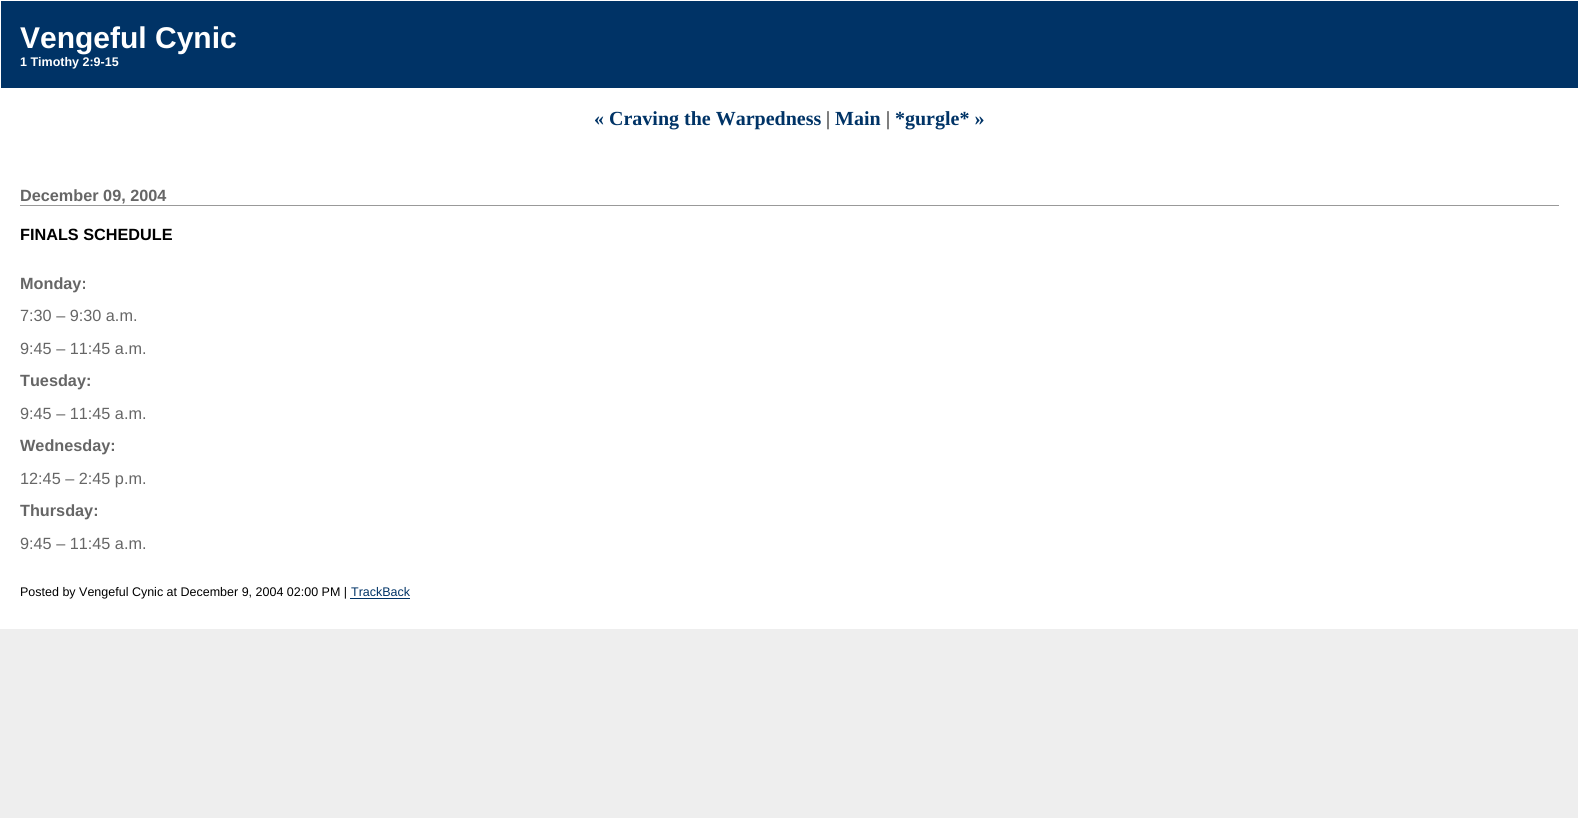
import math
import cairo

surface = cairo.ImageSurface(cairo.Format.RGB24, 1578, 818)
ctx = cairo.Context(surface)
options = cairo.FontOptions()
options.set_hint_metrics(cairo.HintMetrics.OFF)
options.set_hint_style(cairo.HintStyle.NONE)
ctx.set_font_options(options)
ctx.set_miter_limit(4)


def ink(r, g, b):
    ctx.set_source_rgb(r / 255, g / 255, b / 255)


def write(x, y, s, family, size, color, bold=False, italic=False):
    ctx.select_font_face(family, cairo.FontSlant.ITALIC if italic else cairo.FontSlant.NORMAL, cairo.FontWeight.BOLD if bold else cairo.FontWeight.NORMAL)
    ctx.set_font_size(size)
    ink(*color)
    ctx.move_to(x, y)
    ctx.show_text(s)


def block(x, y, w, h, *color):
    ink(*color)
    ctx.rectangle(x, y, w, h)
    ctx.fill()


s1 = dict(family="Liberation Sans", size=30, color=(255, 255, 255), bold=True)
s2 = dict(family="Liberation Sans", size=12.5, color=(255, 255, 255), bold=True)
s3 = dict(family="Liberation Serif", size=20, color=(0, 51, 102), bold=True)
s4 = dict(family="Liberation Serif", size=20, color=(0, 0, 0))
s5 = dict(family="Liberation Sans", size=16.25, color=(102, 102, 102), bold=True)
s6 = dict(family="Liberation Sans", size=16.25, color=(0, 0, 0), bold=True)
s7 = dict(family="Liberation Sans", size=16.25, color=(102, 102, 102))
s8 = dict(family="Liberation Sans", size=12.5, color=(0, 0, 0))
s9 = dict(family="Liberation Sans", size=12.5, color=(0, 51, 102))

ink(238, 238, 238)
ctx.paint()
block(1, 1, 1577, 87, 0, 51, 102)
block(0, 0, 1578, 1, 255, 255, 255)
block(0, 0, 1, 88, 255, 255, 255)
write(20, 48, "Vengeful Cynic", **s1)
write(20, 66, "1 Timothy 2:9-15", **s2)
block(0, 88, 1578, 541, 255, 255, 255)
write(594, 125, "« Craving the Warpedness", **s3)
write(826, 125, "|", **s4)
write(835, 125, "Main", **s3)
write(886, 125, "|", **s4)
write(895, 125, "*gurgle* »", **s3)
block(20, 205, 1539, 1, 153, 153, 153)
write(20, 201, "December 09, 2004", **s5)
write(20, 240, "FINALS SCHEDULE", **s6)
write(20, 289, "Monday:", **s5)
write(20, 321, "7:30 – 9:30 a.m.", **s7)
write(20, 354, "9:45 – 11:45 a.m.", **s7)
write(20, 386, "Tuesday:", **s5)
write(20, 419, "9:45 – 11:45 a.m.", **s7)
write(20, 451, "Wednesday:", **s5)
write(20, 484, "12:45 – 2:45 p.m.", **s7)
write(20, 516, "Thursday:", **s5)
write(20, 549, "9:45 – 11:45 a.m.", **s7)
write(20, 596, "Posted by Vengeful Cynic at December 9, 2004 02:00 PM |", **s8)
write(351, 596, "TrackBack", **s9)
block(350, 598, 60, 1, 0, 51, 102)
surface.write_to_png("screenshot.png")
